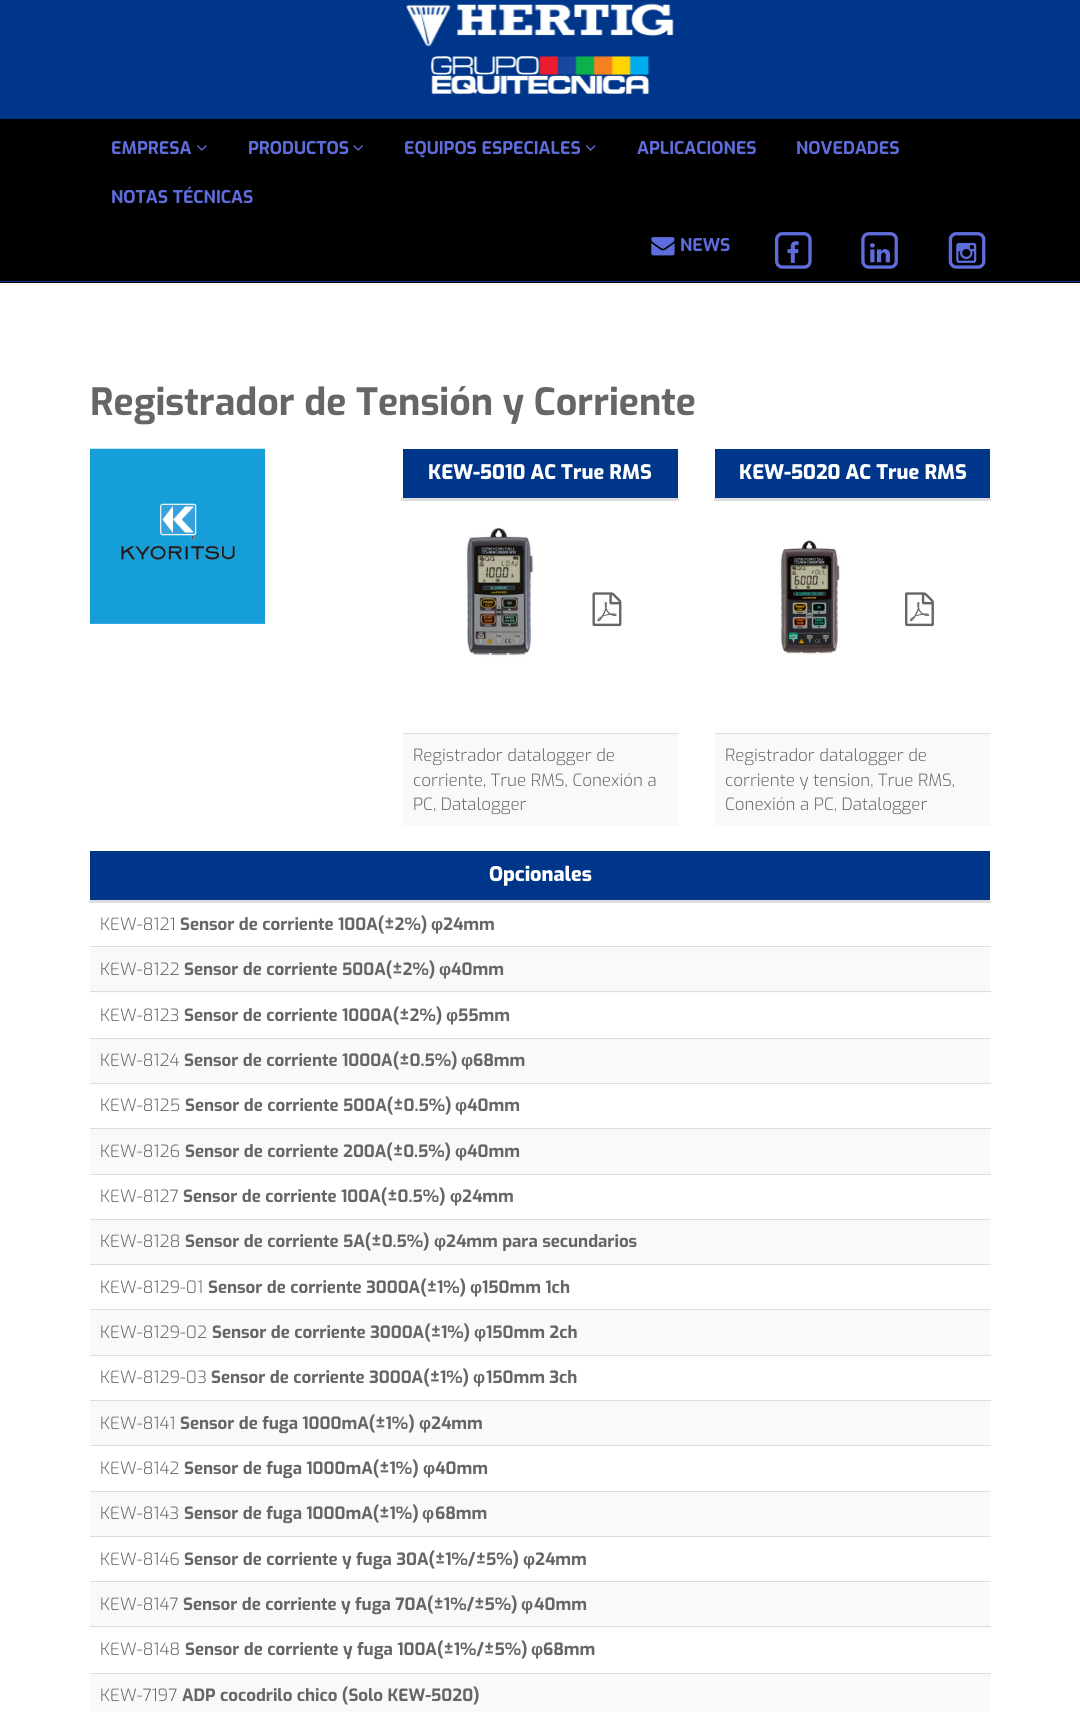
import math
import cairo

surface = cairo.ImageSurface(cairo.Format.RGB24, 1080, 1712)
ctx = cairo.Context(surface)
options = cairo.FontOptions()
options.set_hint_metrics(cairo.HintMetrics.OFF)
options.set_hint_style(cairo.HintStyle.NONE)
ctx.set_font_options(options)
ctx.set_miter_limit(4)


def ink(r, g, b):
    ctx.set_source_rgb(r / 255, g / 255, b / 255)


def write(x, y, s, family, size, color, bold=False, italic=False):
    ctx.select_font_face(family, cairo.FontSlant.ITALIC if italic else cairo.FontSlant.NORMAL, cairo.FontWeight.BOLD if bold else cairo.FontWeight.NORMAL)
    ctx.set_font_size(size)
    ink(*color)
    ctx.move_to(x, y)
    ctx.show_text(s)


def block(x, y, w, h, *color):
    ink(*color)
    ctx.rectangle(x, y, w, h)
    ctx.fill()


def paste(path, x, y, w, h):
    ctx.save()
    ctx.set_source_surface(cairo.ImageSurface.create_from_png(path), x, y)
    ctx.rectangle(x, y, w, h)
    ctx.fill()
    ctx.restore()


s1 = dict(family="Exo", size=17.5, color=(94, 109, 219), bold=True)
s2 = dict(family="Exo", size=37.5, color=(102, 102, 102), bold=True)
s3 = dict(family="Exo ExtraBold", size=20, color=(255, 255, 255))
s4 = dict(family="Exo Light", size=16.9, color=(102, 102, 102))
s5 = dict(family="Exo", size=16.9, color=(102, 102, 102), bold=True)
s6 = dict(family="Liberation Sans", size=16.9, color=(102, 102, 102), bold=True)

ink(255, 255, 255)
ctx.paint()
block(0, 0, 1080, 119, 0, 54, 138)
block(0, 119, 1080, 164, 0, 0, 0)
paste("pic1.png", 406, 3, 268, 44)
paste("pic2.png", 431, 56, 219, 38)
block(0, 281, 1080, 1, 0, 54, 138)
write(111, 154, "EMPRESA", **s1)
paste("pic3.png", 197, 145, 10, 6)
write(248, 154, "PRODUCTOS", **s1)
paste("pic4.png", 353, 145, 10, 6)
write(404, 154, "EQUIPOS ESPECIALES", **s1)
paste("pic5.png", 585, 145, 11, 6)
write(637, 154, "APLICACIONES", **s1)
write(796, 154, "NOVEDADES", **s1)
write(111, 203, "NOTAS TÉCNICAS", **s1)
paste("pic6.png", 651, 237, 24, 19)
write(680, 251, "NEWS", **s1)
paste("pic7.png", 775, 232, 37, 37)
paste("pic8.png", 787, 241, 12, 22)
paste("pic9.png", 861, 232, 37, 37)
paste("pic10.png", 870, 243, 20, 20)
paste("pic11.png", 948, 232, 38, 37)
paste("pic12.png", 956, 242, 21, 21)
write(90, 415, "Registrador de Tensión y Corriente", **s2)
paste("pic13.png", 90, 448, 175, 176)
block(403, 449, 275, 49, 0, 54, 138)
block(401, 498, 278, 3, 221, 221, 221)
write(428, 479, "KEW-5010 AC True RMS", **s3)
paste("pic14.png", 465, 527, 69, 130)
paste("pic15.png", 592, 592, 30, 35)
block(403, 734, 275, 92, 249, 249, 249)
block(403, 733, 276, 1, 221, 221, 221)
write(413, 761, "Registrador datalogger de", **s4)
write(413, 786, "corriente, True RMS, Conexión a", **s4)
write(413, 810, "PC, Datalogger", **s4)
block(715, 449, 275, 49, 0, 54, 138)
block(714, 498, 277, 3, 221, 221, 221)
write(739, 479, "KEW-5020 AC True RMS", **s3)
paste("pic16.png", 777, 539, 64, 116)
paste("pic17.png", 905, 592, 29, 35)
block(715, 734, 275, 92, 249, 249, 249)
block(715, 733, 276, 1, 221, 221, 221)
write(725, 761, "Registrador datalogger de", **s4)
write(725, 786, "corriente y tension, True RMS,", **s4)
write(725, 810, "Conexión a PC, Datalogger", **s4)
block(90, 851, 900, 49, 0, 54, 138)
block(89, 900, 902, 3, 221, 221, 221)
write(489, 881, "Opcionales", **s3)
write(100, 930, "KEW-8121", **s4)
write(180, 930, "Sensor de corriente 100A(±2%)", **s5)
write(431, 930, "φ", **s6)
write(443, 930, "24mm", **s5)
block(90, 948, 900, 45, 249, 249, 249)
block(90, 946, 901, 1, 221, 221, 221)
write(100, 975, "KEW-8122", **s4)
write(184, 975, "Sensor de corriente 500A(±2%)", **s5)
write(439, 975, "φ", **s6)
write(451, 975, "40mm", **s5)
block(90, 991, 901, 1, 221, 221, 221)
write(100, 1021, "KEW-8123", **s4)
write(184, 1021, "Sensor de corriente 1000A(±2%)", **s5)
write(446, 1021, "φ", **s6)
write(458, 1021, "55mm", **s5)
block(90, 1039, 900, 44, 249, 249, 249)
block(90, 1038, 901, 1, 221, 221, 221)
write(100, 1066, "KEW-8124", **s4)
write(184, 1066, "Sensor de corriente 1000A(±0.5%)", **s5)
write(461, 1066, "φ", **s6)
write(473, 1066, "68mm", **s5)
block(90, 1083, 901, 1, 221, 221, 221)
write(100, 1111, "KEW-8125", **s4)
write(185, 1111, "Sensor de corriente 500A(±0.5%)", **s5)
write(455, 1111, "φ", **s6)
write(467, 1111, "40mm", **s5)
block(90, 1129, 900, 45, 249, 249, 249)
block(90, 1128, 901, 1, 221, 221, 221)
write(100, 1157, "KEW-8126", **s4)
write(185, 1157, "Sensor de corriente 200A(±0.5%)", **s5)
write(455, 1157, "φ", **s6)
write(467, 1157, "40mm", **s5)
block(90, 1174, 901, 1, 221, 221, 221)
write(100, 1202, "KEW-8127", **s4)
write(183, 1202, "Sensor de corriente 100A(±0.5%)", **s5)
write(450, 1202, "φ", **s6)
write(462, 1202, "24mm", **s5)
block(90, 1220, 900, 44, 249, 249, 249)
block(90, 1219, 901, 1, 221, 221, 221)
write(100, 1247, "KEW-8128", **s4)
write(185, 1247, "Sensor de corriente 5A(±0.5%)", **s5)
write(434, 1247, "φ", **s6)
write(446, 1247, "24mm para secundarios", **s5)
block(90, 1264, 901, 1, 221, 221, 221)
write(100, 1293, "KEW-8129-01", **s4)
write(208, 1293, "Sensor de corriente 3000A(±1%)", **s5)
write(470, 1293, "φ", **s6)
write(482, 1293, "150mm 1ch", **s5)
block(90, 1310, 900, 45, 249, 249, 249)
block(90, 1309, 901, 1, 221, 221, 221)
write(100, 1338, "KEW-8129-02", **s4)
write(212, 1338, "Sensor de corriente 3000A(±1%)", **s5)
write(474, 1338, "φ", **s6)
write(486, 1338, "150mm 2ch", **s5)
block(90, 1355, 901, 1, 221, 221, 221)
write(100, 1383, "KEW-8129-03", **s4)
write(211, 1383, "Sensor de corriente 3000A(±1%)", **s5)
write(473, 1383, "φ", **s6)
write(486, 1383, "150mm 3ch", **s5)
block(90, 1401, 900, 44, 249, 249, 249)
block(90, 1400, 901, 1, 221, 221, 221)
write(100, 1429, "KEW-8141", **s4)
write(180, 1429, "Sensor de fuga 1000mA(±1%)", **s5)
write(419, 1429, "φ", **s6)
write(431, 1429, "24mm", **s5)
block(90, 1445, 901, 1, 221, 221, 221)
write(100, 1474, "KEW-8142", **s4)
write(184, 1474, "Sensor de fuga 1000mA(±1%)", **s5)
write(423, 1474, "φ", **s6)
write(435, 1474, "40mm", **s5)
block(90, 1492, 900, 44, 249, 249, 249)
block(90, 1491, 901, 1, 221, 221, 221)
write(100, 1519, "KEW-8143", **s4)
write(184, 1519, "Sensor de fuga 1000mA(±1%)", **s5)
write(422, 1519, "φ", **s6)
write(435, 1519, "68mm", **s5)
block(90, 1536, 901, 1, 221, 221, 221)
write(100, 1565, "KEW-8146", **s4)
write(184, 1565, "Sensor de corriente y fuga 30A(±1%/±5%)", **s5)
write(523, 1565, "φ", **s6)
write(535, 1565, "24mm", **s5)
block(90, 1583, 900, 45, 249, 249, 249)
block(90, 1581, 901, 1, 221, 221, 221)
write(100, 1610, "KEW-8147", **s4)
write(183, 1610, "Sensor de corriente y fuga 70A(±1%/±5%)", **s5)
write(521, 1610, "φ", **s6)
write(534, 1610, "40mm", **s5)
block(90, 1626, 901, 1, 221, 221, 221)
write(100, 1655, "KEW-8148", **s4)
write(185, 1655, "Sensor de corriente y fuga 100A(±1%/±5%)", **s5)
write(531, 1655, "φ", **s6)
write(543, 1655, "68mm", **s5)
block(90, 1674, 900, 38, 249, 249, 249)
block(90, 1673, 901, 1, 221, 221, 221)
write(100, 1701, "KEW-7197", **s4)
write(182, 1701, "ADP cocodrilo chico (Solo KEW-5020)", **s5)
surface.write_to_png("screenshot.png")
